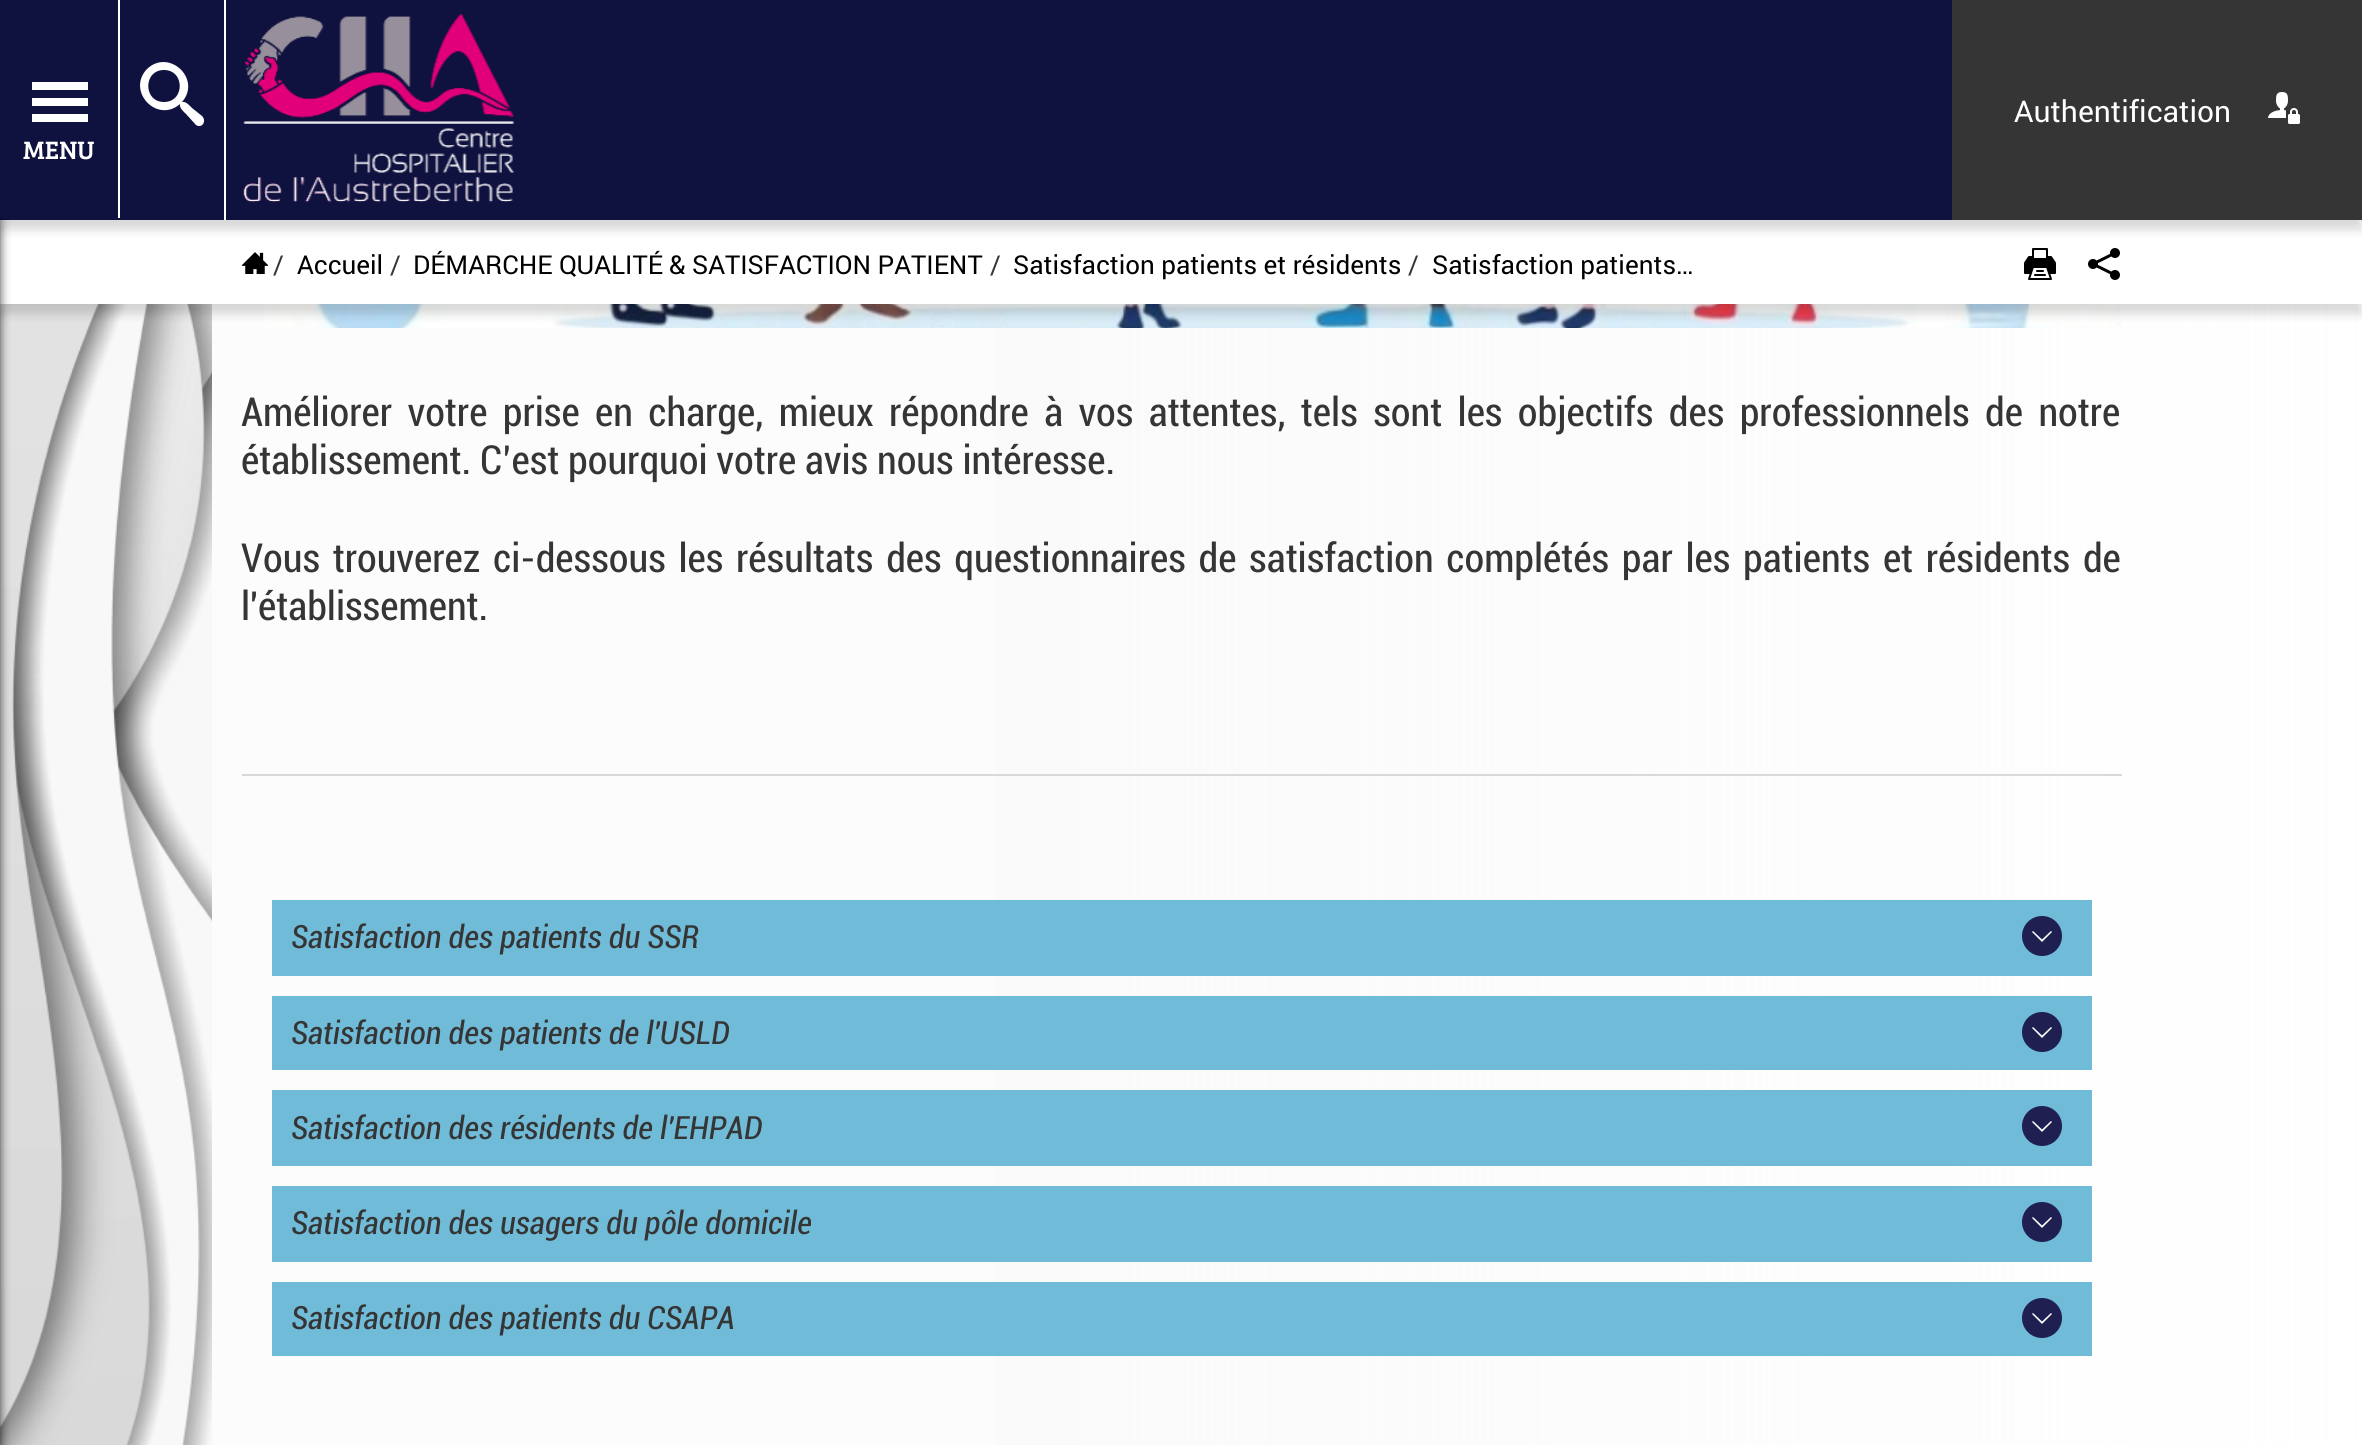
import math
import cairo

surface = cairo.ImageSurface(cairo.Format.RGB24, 2362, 1445)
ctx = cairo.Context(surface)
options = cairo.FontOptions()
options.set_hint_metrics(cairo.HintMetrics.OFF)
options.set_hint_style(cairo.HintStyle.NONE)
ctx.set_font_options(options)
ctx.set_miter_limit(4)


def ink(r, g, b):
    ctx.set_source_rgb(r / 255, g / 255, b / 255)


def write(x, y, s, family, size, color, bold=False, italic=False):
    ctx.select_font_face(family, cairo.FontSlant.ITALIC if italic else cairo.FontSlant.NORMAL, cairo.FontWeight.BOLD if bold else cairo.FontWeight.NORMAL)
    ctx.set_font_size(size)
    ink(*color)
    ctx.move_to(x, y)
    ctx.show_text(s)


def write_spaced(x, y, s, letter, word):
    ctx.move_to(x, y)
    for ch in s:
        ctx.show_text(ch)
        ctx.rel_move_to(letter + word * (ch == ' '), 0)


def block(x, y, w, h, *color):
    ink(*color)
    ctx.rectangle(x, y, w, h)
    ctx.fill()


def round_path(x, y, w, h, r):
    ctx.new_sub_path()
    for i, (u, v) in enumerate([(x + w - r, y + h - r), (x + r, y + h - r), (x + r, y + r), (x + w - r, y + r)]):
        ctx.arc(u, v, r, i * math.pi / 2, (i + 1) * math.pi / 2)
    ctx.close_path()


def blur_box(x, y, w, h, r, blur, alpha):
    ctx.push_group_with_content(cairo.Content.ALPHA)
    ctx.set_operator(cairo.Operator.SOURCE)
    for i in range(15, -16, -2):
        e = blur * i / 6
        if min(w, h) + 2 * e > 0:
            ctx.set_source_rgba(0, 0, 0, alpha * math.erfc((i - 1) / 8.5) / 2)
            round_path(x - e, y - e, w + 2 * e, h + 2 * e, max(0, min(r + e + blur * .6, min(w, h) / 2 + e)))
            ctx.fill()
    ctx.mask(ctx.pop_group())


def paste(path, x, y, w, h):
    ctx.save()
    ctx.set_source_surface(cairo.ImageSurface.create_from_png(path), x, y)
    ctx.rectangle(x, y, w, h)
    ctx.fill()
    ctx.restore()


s1 = dict(family="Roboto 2", size=30, color=(255, 255, 255))
s2 = dict(family="Bree Serif", size=26, color=(255, 255, 255))
s3 = dict(family="Roboto 2", size=26, color=(53, 53, 53))
s4 = dict(family="Roboto 2", size=26, color=(0, 0, 0))
s5 = dict(family="Roboto", size=40, color=(53, 53, 53))
s6 = dict(family="Roboto", size=32, color=(53, 53, 53), italic=True)

ink(255, 255, 255)
ctx.paint()
paste("pic3.png", 0, 304, 2362, 1141)
block(212, 304, 784, 1141, 252, 252, 252)
paste("pic7.png", 264, 304, 1858, 24)
ink(0, 0, 0)
blur_box(0, 230, 2362, 84, 0, 5, 0.15)
block(0, 223, 2362, 81, 255, 255, 255)
ink(0, 0, 0)
blur_box(0, 10, 2362, 220, 0, 5, 0.15)
block(0, 0, 1952, 220, 15, 17, 63)
block(224, 0, 2, 220, 255, 255, 255)
ctx.new_path()
ctx.move_to(202, 116)
ctx.line_to(192, 108)
ctx.curve_to(190, 106, 186, 101, 182, 102)
ctx.curve_to(202, 79, 169, 48, 147, 69)
ctx.curve_to(126, 91, 157, 124, 180, 104)
ctx.curve_to(179, 108, 184, 112, 186, 114)
ctx.line_to(196, 125)
ctx.curve_to(202, 129, 207, 121, 202, 116)
ctx.close_path()
ctx.move_to(164, 102)
ctx.curve_to(143, 102, 143, 70, 164, 70)
ctx.curve_to(185, 70, 185, 102, 164, 102)
ctx.close_path()
ctx.fill()
paste("pic1.png", 243, 14, 272, 189)
block(1952, 0, 410, 220, 53, 53, 53)
write(2014, 122, "Authentification", **s1)
paste("pic2.png", 2268, 92, 32, 32)
ink(0, 0, 0)
blur_box(-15, 0, 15, 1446, 0, 5, 0.75)
block(0, 0, 8, 218, 15, 17, 63)
block(118, 0, 2, 218, 255, 255, 255)
ctx.new_path()
ctx.move_to(32, 82)
ctx.line_to(88, 82)
ctx.line_to(88, 90)
ctx.line_to(32, 90)
ctx.close_path()
ctx.move_to(32, 98)
ctx.line_to(88, 98)
ctx.line_to(88, 106)
ctx.line_to(32, 106)
ctx.close_path()
ctx.move_to(32, 114)
ctx.line_to(88, 114)
ctx.line_to(88, 122)
ctx.line_to(32, 122)
ctx.close_path()
ctx.fill()
write(23, 159, "MENU", **s2)
paste("pic4.png", 242, 252, 26, 22)
write(273, 274, "/", **s3)
write(297, 274, "Accueil", **s4)
write(390, 274, "/", **s3)
write(413, 274, "DÉMARCHE QUALITÉ & SATISFACTION PATIENT", **s4)
write(990, 274, "/", **s3)
write(1013, 274, "Satisfaction patients et résidents", **s4)
write(1408, 274, "/", **s3)
write(1432, 274, "Satisfaction patients…", **s4)
paste("pic5.png", 2024, 248, 32, 32)
paste("pic6.png", 2088, 248, 32, 32)
ctx.select_font_face("Roboto")
ctx.set_font_size(40)
ink(53, 53, 53)
write_spaced(241, 426, "Améliorer votre prise en charge, mieux répondre à vos attentes, tels sont les objectifs des professionnels de notre", 0, 6.6)
write(241, 474, "établissement. C’est pourquoi votre avis nous intéresse.", **s5)
write_spaced(241, 572, "Vous trouverez ci-dessous les résultats des questionnaires de satisfaction complétés par les patients et résidents de", 0, 3.9)
write(241, 620, "l'établissement.", **s5)
block(242, 774, 1880, 2, 217, 217, 217)
block(272, 900, 1820, 76, 112, 187, 216)
write(291, 948, "Satisfaction des patients du SSR", **s6)
ink(31, 31, 81)
ctx.new_path()
ctx.arc(2042, 936, 20, 0, 2 * math.pi)
ctx.fill()
ink(255, 255, 255)
ctx.new_path()
ctx.move_to(2052, 932)
ctx.line_to(2051, 931)
ctx.line_to(2042, 939.5)
ctx.line_to(2033, 931)
ctx.line_to(2032, 932)
ctx.line_to(2042, 942)
ctx.close_path()
ctx.fill()
block(272, 996, 1820, 74, 112, 187, 216)
write(291, 1044, "Satisfaction des patients de l'USLD", **s6)
ink(31, 31, 81)
ctx.new_path()
ctx.arc(2042, 1032, 20, 0, 2 * math.pi)
ctx.fill()
ink(255, 255, 255)
ctx.new_path()
ctx.move_to(2052, 1028)
ctx.line_to(2051, 1027)
ctx.line_to(2042, 1035.5)
ctx.line_to(2033, 1027)
ctx.line_to(2032, 1028)
ctx.line_to(2042, 1038)
ctx.close_path()
ctx.fill()
block(272, 1090, 1820, 76, 112, 187, 216)
write(291, 1139, "Satisfaction des résidents de l'EHPAD", **s6)
ink(31, 31, 81)
ctx.new_path()
ctx.arc(2042, 1126, 20, 0, 2 * math.pi)
ctx.fill()
ink(255, 255, 255)
ctx.new_path()
ctx.move_to(2052, 1122)
ctx.line_to(2051, 1121)
ctx.line_to(2042, 1129.5)
ctx.line_to(2033, 1121)
ctx.line_to(2032, 1122)
ctx.line_to(2042, 1132)
ctx.close_path()
ctx.fill()
block(272, 1186, 1820, 76, 112, 187, 216)
write(291, 1234, "Satisfaction des usagers du pôle domicile", **s6)
ink(31, 31, 81)
ctx.new_path()
ctx.arc(2042, 1222, 20, 0, 2 * math.pi)
ctx.fill()
ink(255, 255, 255)
ctx.new_path()
ctx.move_to(2052, 1218)
ctx.line_to(2051, 1217)
ctx.line_to(2042, 1225.5)
ctx.line_to(2033, 1217)
ctx.line_to(2032, 1218)
ctx.line_to(2042, 1228)
ctx.close_path()
ctx.fill()
block(272, 1282, 1820, 74, 112, 187, 216)
write(291, 1329, "Satisfaction des patients du CSAPA", **s6)
ink(31, 31, 81)
ctx.new_path()
ctx.arc(2042, 1318, 20, 0, 2 * math.pi)
ctx.fill()
ink(255, 255, 255)
ctx.new_path()
ctx.move_to(2052, 1314)
ctx.line_to(2051, 1313)
ctx.line_to(2042, 1321.5)
ctx.line_to(2033, 1313)
ctx.line_to(2032, 1314)
ctx.line_to(2042, 1324)
ctx.close_path()
ctx.fill()
surface.write_to_png("screenshot.png")
